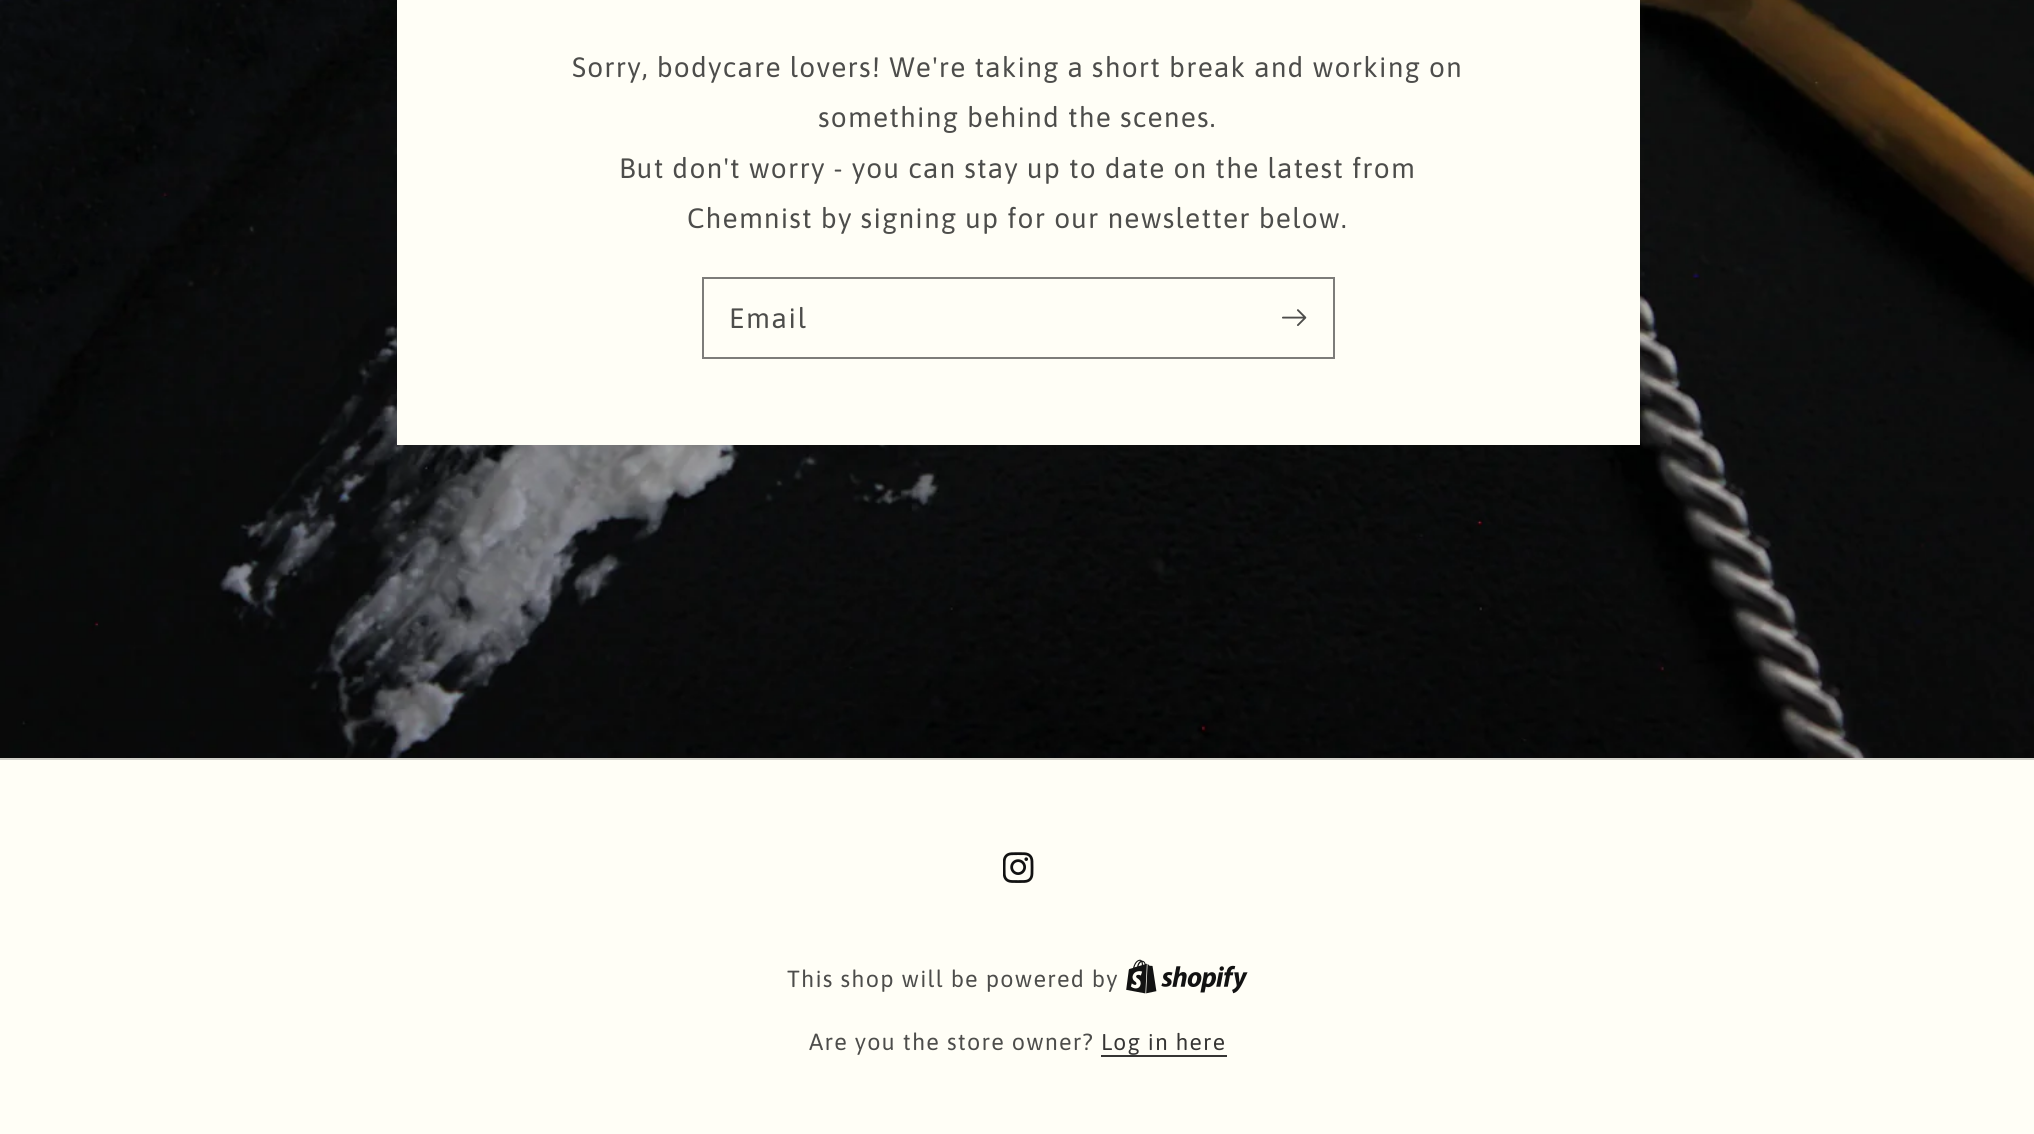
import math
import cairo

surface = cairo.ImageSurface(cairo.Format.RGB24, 2034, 1134)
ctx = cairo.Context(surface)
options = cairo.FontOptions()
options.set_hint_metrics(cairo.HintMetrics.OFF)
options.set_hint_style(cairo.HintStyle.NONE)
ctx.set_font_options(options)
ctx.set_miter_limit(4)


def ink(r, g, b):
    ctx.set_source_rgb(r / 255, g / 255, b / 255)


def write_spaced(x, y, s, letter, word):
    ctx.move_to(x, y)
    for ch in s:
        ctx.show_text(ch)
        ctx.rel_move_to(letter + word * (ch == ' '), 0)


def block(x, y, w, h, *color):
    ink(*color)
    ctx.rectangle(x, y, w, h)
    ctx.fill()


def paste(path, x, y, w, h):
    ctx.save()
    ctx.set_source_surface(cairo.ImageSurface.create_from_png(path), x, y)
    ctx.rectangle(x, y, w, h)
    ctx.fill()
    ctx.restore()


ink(255, 254, 246)
ctx.paint()
paste("pic1.png", 0, 0, 2034, 758)
block(397, 0, 1243, 445, 255, 254, 246)
ctx.select_font_face("Asap")
ctx.set_font_size(28)
ink(77, 77, 75)
write_spaced(572, 77, "Sorry, bodycare lovers! We're taking a short break and working on", 1.22, 0)
write_spaced(818, 127, "something behind the scenes.", 1.22, 0)
write_spaced(619, 178, "But don't worry - you can stay up to date on the latest from", 1.22, 0)
write_spaced(687, 228, "Chemnist by signing up for our newsletter below.", 1.22, 0)
ctx.rectangle(703, 278, 631, 80)
ink(125, 124, 121)
ctx.stroke()
ink(77, 77, 75)
write_spaced(729, 328, "Email", 1.75, 0)
paste("pic2.png", 1282, 309, 25, 17)
block(0, 758, 2034, 2, 208, 207, 200)
paste("pic3.png", 1003, 852, 31, 31)
ctx.set_font_size(23.3)
ink(77, 77, 75)
write_spaced(787, 987, "This shop will be powered by", 1.22, 0)
paste("pic4.png", 1126, 959, 122, 35)
write_spaced(809, 1050, "Are you the store owner?", 1.22, 0)
ctx.set_font_size(22.75)
ink(54, 53, 52)
write_spaced(1101, 1050, "Log in here", 1.22, 0)
block(1101, 1055, 126, 2, 54, 53, 52)
surface.write_to_png("screenshot.png")
